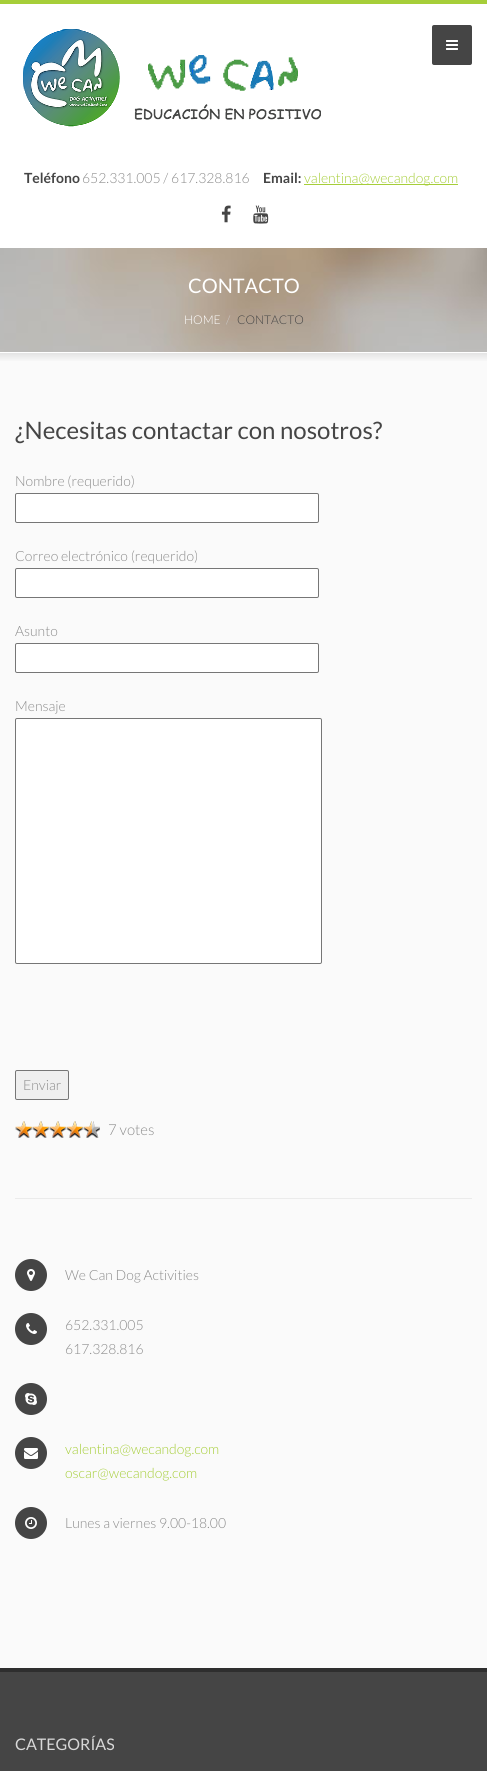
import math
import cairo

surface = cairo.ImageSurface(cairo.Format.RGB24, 487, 1771)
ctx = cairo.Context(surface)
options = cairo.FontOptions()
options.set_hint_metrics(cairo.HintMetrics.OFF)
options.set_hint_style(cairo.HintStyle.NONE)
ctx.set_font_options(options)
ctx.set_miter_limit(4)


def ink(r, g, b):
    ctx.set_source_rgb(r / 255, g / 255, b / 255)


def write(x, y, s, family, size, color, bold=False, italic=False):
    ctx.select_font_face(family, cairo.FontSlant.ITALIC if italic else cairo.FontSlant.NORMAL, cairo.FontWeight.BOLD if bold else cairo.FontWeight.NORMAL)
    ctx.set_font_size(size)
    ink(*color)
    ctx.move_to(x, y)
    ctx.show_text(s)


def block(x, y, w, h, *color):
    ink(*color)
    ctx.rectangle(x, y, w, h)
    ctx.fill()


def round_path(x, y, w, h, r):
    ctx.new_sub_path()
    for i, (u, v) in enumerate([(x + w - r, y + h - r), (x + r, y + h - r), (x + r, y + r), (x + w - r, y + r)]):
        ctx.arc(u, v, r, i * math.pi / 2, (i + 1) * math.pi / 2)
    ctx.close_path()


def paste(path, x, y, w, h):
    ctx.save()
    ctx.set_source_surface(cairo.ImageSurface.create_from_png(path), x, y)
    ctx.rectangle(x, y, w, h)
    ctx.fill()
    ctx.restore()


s1 = dict(family="Lato", size=14, color=(69, 69, 69), bold=True)
s2 = dict(family="Lato Light", size=14, color=(140, 140, 140))
s3 = dict(family="Lato Light", size=14, color=(166, 206, 57))
s4 = dict(family="Lato", size=20, color=(255, 255, 255))
s5 = dict(family="Lato Light", size=12, color=(255, 255, 255))
s6 = dict(family="Lato Light", size=12, color=(204, 204, 204))
s7 = dict(family="Lato Light", size=12, color=(69, 69, 69))
s8 = dict(family="Lato", size=24, color=(69, 69, 69))
s9 = dict(family="Lato Light", size=15, color=(140, 140, 140))
s10 = dict(family="Lato", size=16, color=(216, 216, 216))

ink(250, 250, 250)
ctx.paint()
block(0, 4, 487, 244, 255, 255, 255)
block(0, 0, 487, 4, 166, 206, 57)
paste("pic1.png", 23, 29, 298, 98)
ink(69, 69, 69)
round_path(432, 25, 40, 40, 2)
ctx.fill()
paste("pic2.png", 446, 40, 12, 10)
write(24, 183, "Teléfono", **s1)
write(82, 183, "652.331.005 / 617.328.816", **s2)
write(263, 183, "Email:", **s1)
block(304, 184, 154, 1, 166, 206, 57)
write(304, 183, "valentina@wecandog.com", **s3)
paste("pic3.png", 221, 205, 10, 18)
paste("pic4.png", 253, 205, 16, 19)
paste("pic5.png", 0, 248, 487, 104)
write(188, 293, "CONTACTO", **s4)
write(184, 324, "HOME", **s5)
write(226, 324, "/", **s6)
write(237, 324, "CONTACTO", **s7)
block(0, 352, 487, 1, 255, 255, 255)
gradient = cairo.LinearGradient(244, 352, 244, 362)
gradient.add_color_stop_rgba(0, 0.882, 0.882, 0.882, 1)
gradient.add_color_stop_rgba(1, 0.98, 0.98, 0.98, 1)
ctx.set_source(gradient)
ctx.rectangle(0, 353, 487, 8)
ctx.fill()
write(15, 439, "¿Necesitas contactar con nosotros?", **s8)
write(15, 486, "Nombre (requerido)", **s2)
ink(255, 255, 255)
round_path(15.5, 493.5, 303, 29, 1.5)
ctx.fill_preserve()
ink(118, 118, 118)
ctx.set_line_width(1)
ctx.stroke()
write(15, 561, "Correo electrónico (requerido)", **s2)
ink(255, 255, 255)
round_path(15.5, 568.5, 303, 29, 1.5)
ctx.fill_preserve()
ink(118, 118, 118)
ctx.stroke()
write(15, 636, "Asunto", **s2)
ink(255, 255, 255)
round_path(15.5, 643.5, 303, 29, 1.5)
ctx.fill_preserve()
ink(118, 118, 118)
ctx.stroke()
write(15, 711, "Mensaje", **s2)
ink(255, 255, 255)
round_path(15.5, 718.5, 306, 245, 1.5)
ctx.fill_preserve()
ink(118, 118, 118)
ctx.stroke()
ink(239, 239, 239)
round_path(15.5, 1070.5, 53, 29, 1.5)
ctx.fill_preserve()
ink(118, 118, 118)
ctx.stroke()
write(23, 1090, "Enviar", **s2)
paste("pic6.png", 15, 1121, 17, 17)
paste("pic6.png", 32, 1121, 17, 17)
paste("pic6.png", 49, 1121, 17, 17)
paste("pic6.png", 66, 1121, 17, 17)
paste("pic7.png", 83, 1121, 17, 17)
write(108, 1135, "7 votes", **s9)
block(15, 1198, 457, 1, 235, 235, 235)
ink(69, 69, 69)
ctx.new_path()
ctx.arc(31, 1275, 16, 0, 2 * math.pi)
ctx.fill()
paste("pic8.png", 27, 1269, 8, 12)
write(65, 1280, "We Can Dog Activities", **s2)
ink(69, 69, 69)
ctx.new_path()
ctx.arc(31, 1329, 16, 0, 2 * math.pi)
ctx.fill()
paste("pic9.png", 26, 1323, 11, 11)
write(65, 1330, "652.331.005", **s2)
write(65, 1354, "617.328.816", **s2)
ink(69, 69, 69)
ctx.new_path()
ctx.arc(31, 1399, 16, 0, 2 * math.pi)
ctx.fill()
paste("pic10.png", 25, 1393, 12, 12)
ctx.arc(31, 1453, 16, 0, 2 * math.pi)
ctx.fill()
paste("pic11.png", 24, 1448, 14, 11)
write(65, 1454, "valentina@wecandog.com", **s3)
write(65, 1478, "oscar@wecandog.com", **s3)
ink(69, 69, 69)
ctx.new_path()
ctx.arc(31, 1523, 16, 0, 2 * math.pi)
ctx.fill()
paste("pic12.png", 25, 1517, 12, 12)
write(65, 1528, "Lunes a viernes 9.00-18.00", **s2)
block(0, 1672, 487, 99, 69, 69, 69)
block(0, 1668, 487, 4, 46, 46, 46)
write(15, 1750, "CATEGORÍAS", **s10)
surface.write_to_png("screenshot.png")
